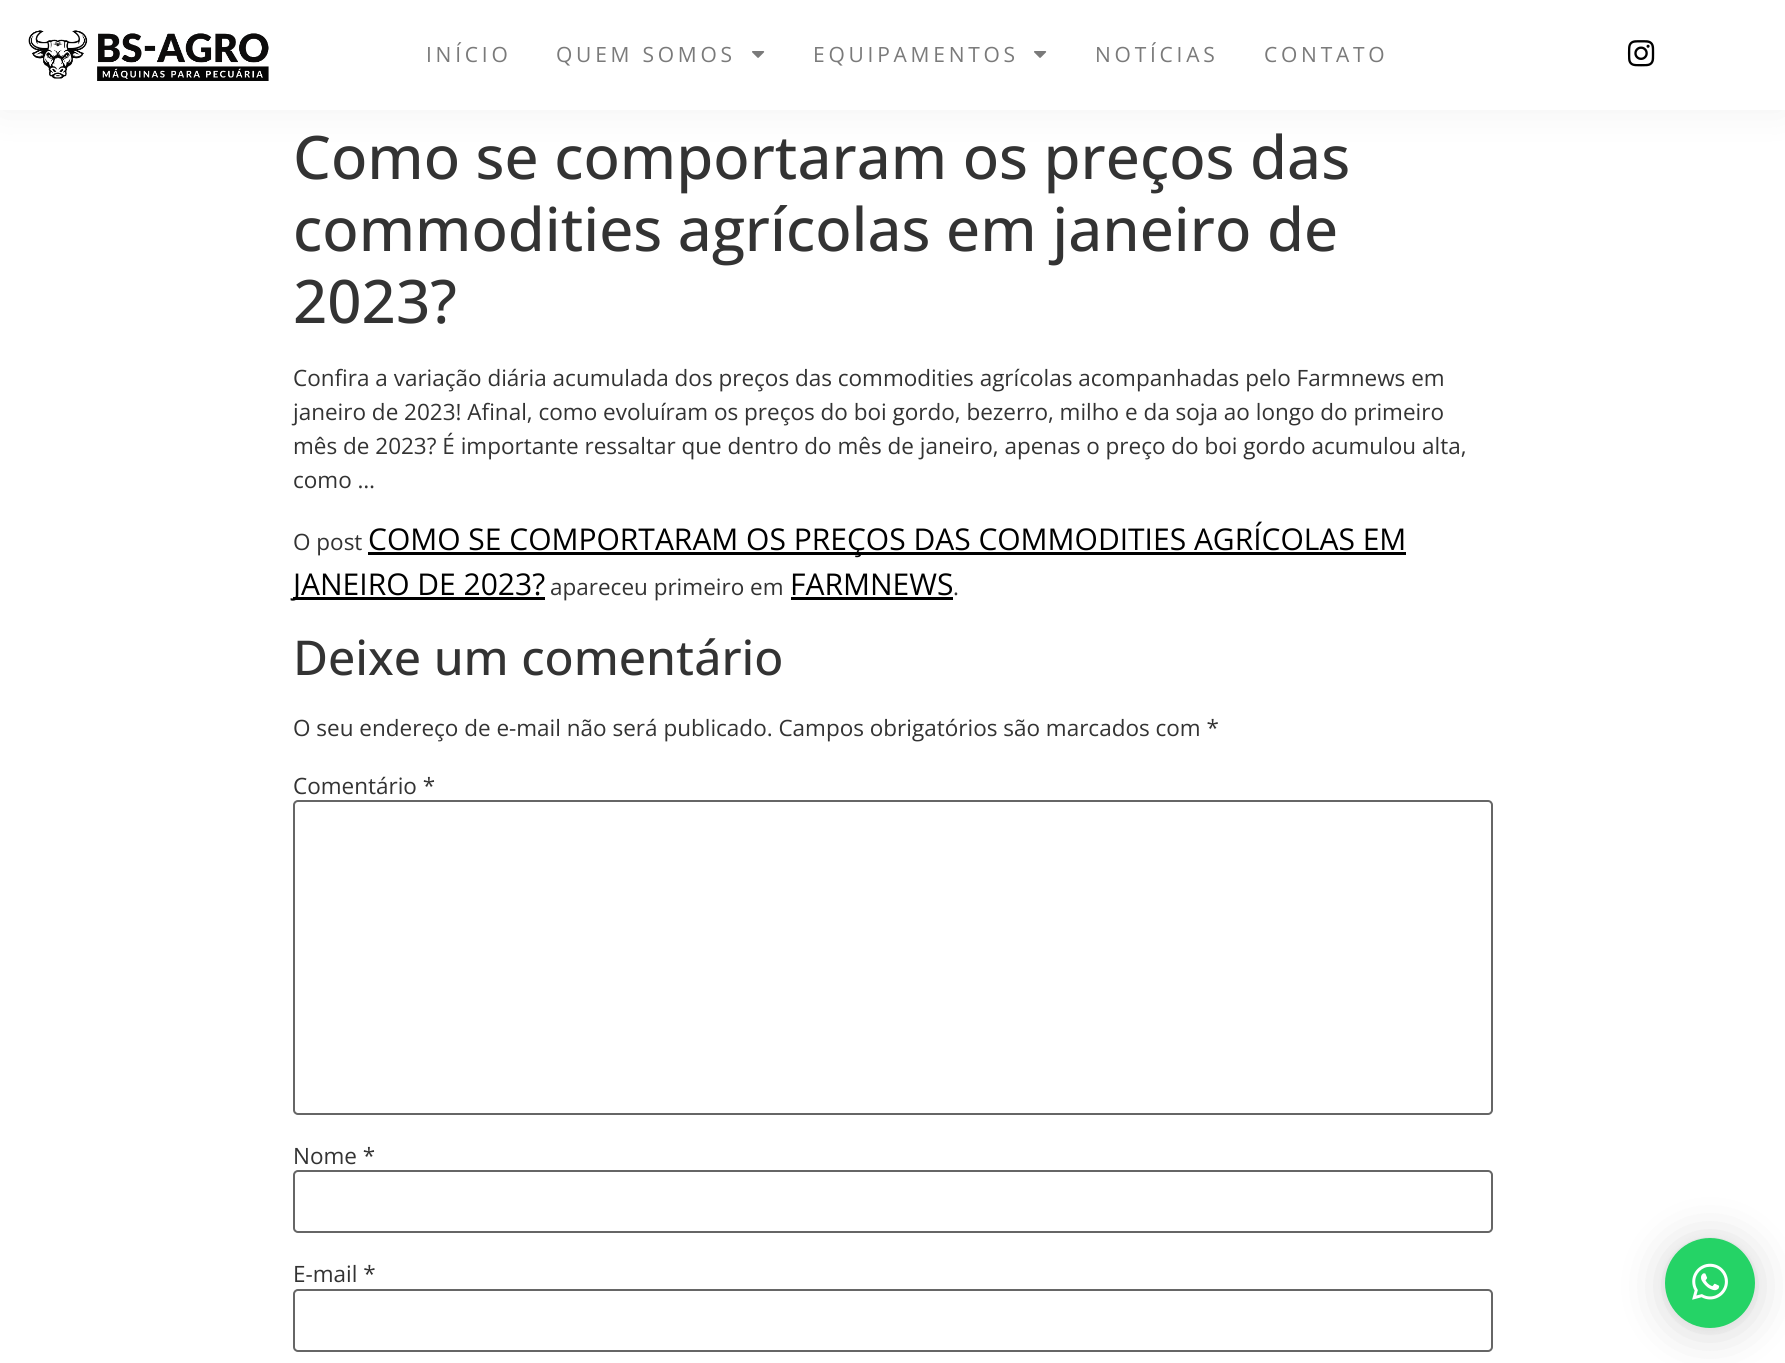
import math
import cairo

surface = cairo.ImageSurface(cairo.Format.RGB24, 1785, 1363)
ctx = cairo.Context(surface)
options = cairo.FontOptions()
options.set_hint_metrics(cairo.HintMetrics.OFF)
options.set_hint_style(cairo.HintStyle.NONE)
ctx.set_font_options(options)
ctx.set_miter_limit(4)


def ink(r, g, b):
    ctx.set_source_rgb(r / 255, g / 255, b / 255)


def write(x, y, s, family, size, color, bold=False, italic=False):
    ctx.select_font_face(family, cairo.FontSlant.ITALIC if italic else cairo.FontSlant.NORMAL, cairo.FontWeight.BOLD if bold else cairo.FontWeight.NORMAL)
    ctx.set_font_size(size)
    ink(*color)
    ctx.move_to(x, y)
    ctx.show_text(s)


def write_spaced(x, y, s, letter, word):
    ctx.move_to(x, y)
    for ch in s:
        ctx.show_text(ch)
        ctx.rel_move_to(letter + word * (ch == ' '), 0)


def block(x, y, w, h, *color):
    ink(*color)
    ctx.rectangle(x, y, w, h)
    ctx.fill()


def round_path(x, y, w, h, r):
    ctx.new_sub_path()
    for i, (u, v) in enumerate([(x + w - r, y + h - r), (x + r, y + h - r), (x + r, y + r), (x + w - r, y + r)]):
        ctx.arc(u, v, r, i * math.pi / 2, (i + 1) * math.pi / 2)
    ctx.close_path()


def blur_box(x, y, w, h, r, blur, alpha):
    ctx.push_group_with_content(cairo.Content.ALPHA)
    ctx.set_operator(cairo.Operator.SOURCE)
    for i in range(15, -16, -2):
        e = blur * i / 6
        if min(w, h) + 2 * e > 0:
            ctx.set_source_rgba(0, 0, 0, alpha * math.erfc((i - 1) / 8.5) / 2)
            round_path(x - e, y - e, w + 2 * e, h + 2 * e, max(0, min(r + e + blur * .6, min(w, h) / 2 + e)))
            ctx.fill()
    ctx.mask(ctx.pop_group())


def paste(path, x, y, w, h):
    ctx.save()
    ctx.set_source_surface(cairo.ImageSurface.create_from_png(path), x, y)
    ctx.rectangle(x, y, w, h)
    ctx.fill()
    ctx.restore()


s1 = dict(family="Open Sans Medium", size=60, color=(51, 51, 51))
s2 = dict(family="Open Sans", size=22.5, color=(51, 51, 51))
s3 = dict(family="Open Sans", size=30, color=(0, 0, 0))
s4 = dict(family="Open Sans Medium", size=48, color=(51, 51, 51))

ink(255, 255, 255)
ctx.paint()
ink(0, 0, 0)
blur_box(0, 0, 1785, 110, 0, 21, 0.06)
block(0, 0, 1785, 110, 255, 255, 255)
paste("pic1.png", 28, 30, 241, 51)
ctx.select_font_face("Open Sans")
ctx.set_font_size(21)
ink(122, 122, 122)
write_spaced(426, 62, "INÍCIO", 3.75, 0)
write_spaced(556, 62, "QUEM SOMOS", 3.75, 0)
paste("pic2.png", 752, 51, 13, 7)
write_spaced(813, 62, "EQUIPAMENTOS", 3.75, 0)
paste("pic2.png", 1034, 51, 13, 7)
write_spaced(1095, 62, "NOTÍCIAS", 3.75, 0)
write_spaced(1264, 62, "CONTATO", 3.75, 0)
paste("pic3.png", 1627, 40, 28, 27)
write(293, 179, "Como se comportaram os preços das", **s1)
write(293, 251, "commodities agrícolas em janeiro de", **s1)
write(293, 323, "2023?", **s1)
write(293, 386, "Confira a variação diária acumulada dos preços das commodities agrícolas acompanhadas pelo Farmnews em", **s2)
write(293, 420, "janeiro de 2023! Afinal, como evoluíram os preços do boi gordo, bezerro, milho e da soja ao longo do primeiro", **s2)
write(293, 454, "mês de 2023? É importante ressaltar que dentro do mês de janeiro, apenas o preço do boi gordo acumulou alta,", **s2)
write(293, 488, "como …", **s2)
write(293, 550, "O post", **s2)
block(368, 552, 1038, 3, 0, 0, 0)
write(368, 550, "COMO SE COMPORTARAM OS PREÇOS DAS COMMODITIES AGRÍCOLAS EM", **s3)
block(293, 597, 252, 3, 0, 0, 0)
write(293, 595, "JANEIRO DE 2023?", **s3)
write(550, 595, "apareceu primeiro em", **s2)
write(790, 595, "FARMNEWS", **s3)
block(791, 597, 162, 3, 0, 0, 0)
write(953, 595, ".", **s2)
write(293, 675, "Deixe um comentário", **s4)
write(293, 736, "O seu endereço de e-mail não será publicado. Campos obrigatórios são marcados com *", **s2)
write(293, 794, "Comentário *", **s2)
round_path(294, 801, 1198, 313, 4)
ink(102, 102, 102)
ctx.stroke()
write(293, 1164, "Nome *", **s2)
round_path(294, 1171, 1198, 61, 4)
ink(102, 102, 102)
ctx.stroke()
write(293, 1282, "E-mail *", **s2)
round_path(294, 1290, 1198, 61, 4)
ink(102, 102, 102)
ctx.stroke()
ink(0, 0, 0)
blur_box(1665, 1241, 90, 90, 45, 24, 0.16)
blur_box(1665, 1239, 90, 90, 45, 4.5, 0.06)
ink(37, 211, 102)
ctx.arc(1710, 1283, 45, 0, 2 * math.pi)
ctx.fill()
paste("pic4.png", 1692, 1263, 36, 37)
surface.write_to_png("screenshot.png")
